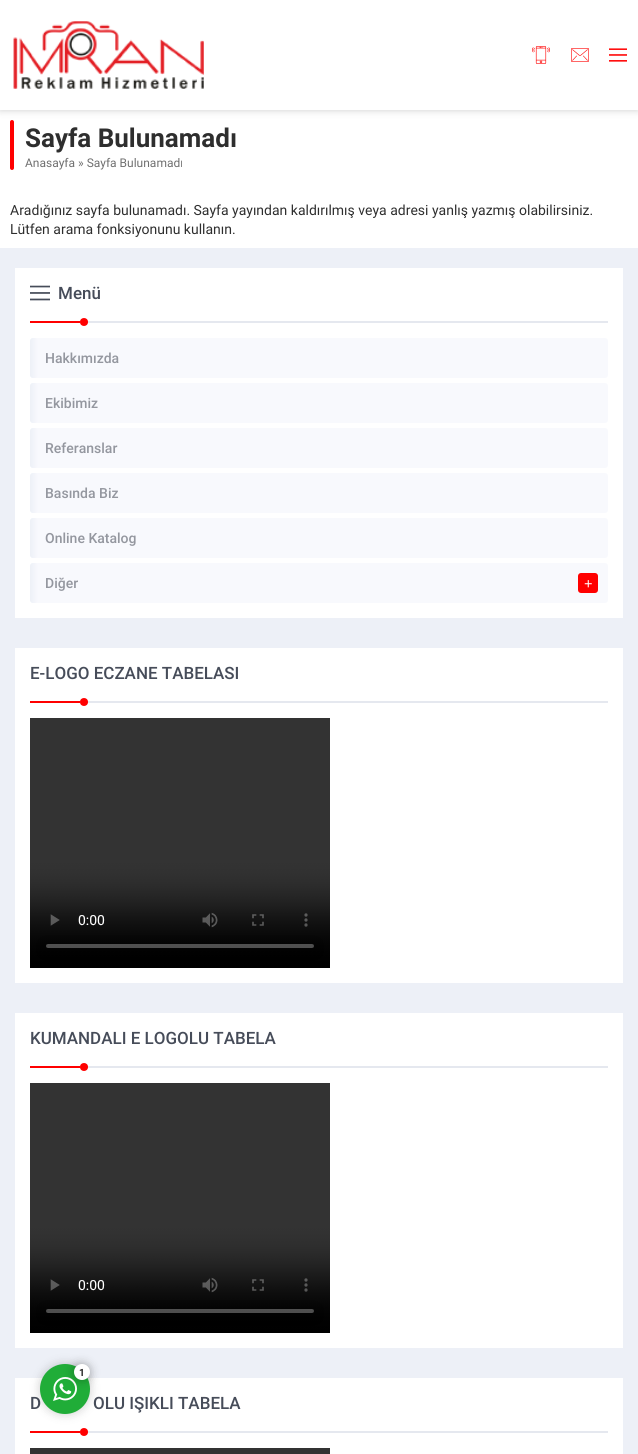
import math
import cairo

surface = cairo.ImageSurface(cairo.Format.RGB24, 638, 1454)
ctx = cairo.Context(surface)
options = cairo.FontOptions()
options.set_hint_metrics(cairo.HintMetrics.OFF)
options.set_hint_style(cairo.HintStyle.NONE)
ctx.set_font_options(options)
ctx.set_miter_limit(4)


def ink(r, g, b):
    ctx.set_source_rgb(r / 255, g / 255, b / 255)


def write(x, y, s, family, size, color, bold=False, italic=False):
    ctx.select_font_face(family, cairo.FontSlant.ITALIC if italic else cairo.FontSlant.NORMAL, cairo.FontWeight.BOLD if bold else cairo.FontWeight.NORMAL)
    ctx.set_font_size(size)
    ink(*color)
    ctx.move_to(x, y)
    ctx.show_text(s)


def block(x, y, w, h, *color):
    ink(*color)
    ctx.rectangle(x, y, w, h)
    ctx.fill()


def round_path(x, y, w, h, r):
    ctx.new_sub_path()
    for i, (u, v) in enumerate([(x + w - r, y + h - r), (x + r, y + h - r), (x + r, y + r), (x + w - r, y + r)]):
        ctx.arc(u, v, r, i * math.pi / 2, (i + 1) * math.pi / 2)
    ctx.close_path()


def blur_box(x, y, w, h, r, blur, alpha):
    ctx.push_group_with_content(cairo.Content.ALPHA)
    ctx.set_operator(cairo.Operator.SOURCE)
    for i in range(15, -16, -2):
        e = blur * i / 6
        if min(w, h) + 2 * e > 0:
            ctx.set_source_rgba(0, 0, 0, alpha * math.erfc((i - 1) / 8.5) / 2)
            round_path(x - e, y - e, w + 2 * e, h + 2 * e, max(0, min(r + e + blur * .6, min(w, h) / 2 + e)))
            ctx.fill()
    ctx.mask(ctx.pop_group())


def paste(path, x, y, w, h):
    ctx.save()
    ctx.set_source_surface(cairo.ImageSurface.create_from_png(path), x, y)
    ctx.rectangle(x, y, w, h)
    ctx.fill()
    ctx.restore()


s1 = dict(family="Roboto", size=26, color=(46, 46, 46), bold=True)
s2 = dict(family="Roboto", size=12, color=(111, 111, 111))
s3 = dict(family="Roboto", size=14, color=(46, 46, 46))
s4 = dict(family="Roboto Medium", size=17, color=(70, 76, 89))
s5 = dict(family="Roboto Medium", size=14, color=(148, 151, 159))
s6 = dict(family="Noto Sans", size=15, color=(255, 255, 255))
s7 = dict(family="Roboto Medium", size=10, color=(0, 0, 0))

ink(237, 240, 247)
ctx.paint()
block(0, 110, 638, 138, 255, 255, 255)
ink(255, 0, 0)
round_path(10, 120, 4, 50, 2)
ctx.fill()
ink(0, 0, 0)
blur_box(0, 0, 638, 110, 0, 4, 0.2)
block(0, 0, 638, 110, 255, 255, 255)
paste("pic1.png", 13, 21, 191, 68)
paste("pic2.png", 532, 46, 18, 18)
paste("pic3.png", 571, 48, 18, 14)
paste("pic4.png", 609, 48, 18, 14)
write(25, 147, "Sayfa Bulunamadı", **s1)
write(25, 167, "Anasayfa » Sayfa Bulunamadı", **s2)
write(10, 215, "Aradığınız sayfa bulunamadı. Sayfa yayından kaldırılmış veya adresi yanlış yazmış olabilirsiniz.", **s3)
write(10, 234, "Lütfen arama fonksiyonunu kullanın.", **s3)
block(15, 268, 608, 350, 255, 255, 255)
paste("pic5.png", 30, 285, 20, 16)
write(58, 299, "Menü", **s4)
block(80, 321, 528, 2, 229, 232, 239)
ink(255, 0, 0)
ctx.new_path()
ctx.arc(84, 322, 4, 0, 2 * math.pi)
ctx.fill()
block(30, 321, 50, 2, 255, 0, 0)
ink(248, 249, 253)
round_path(30, 338, 578, 40, 3)
ctx.fill()
gradient = cairo.LinearGradient(30, 358, 38, 358)
gradient.add_color_stop_rgba(0, 0.929, 0.941, 0.969, 1)
gradient.add_color_stop_rgba(1, 0.973, 0.976, 0.992, 1)
ctx.set_source(gradient)
round_path(30, 338, 8, 40, 3)
ctx.fill()
write(45, 363, "Hakkımızda", **s5)
ink(248, 249, 253)
round_path(30, 383, 578, 40, 3)
ctx.fill()
gradient = cairo.LinearGradient(30, 403, 38, 403)
gradient.add_color_stop_rgba(0, 0.929, 0.941, 0.969, 1)
gradient.add_color_stop_rgba(1, 0.973, 0.976, 0.992, 1)
ctx.set_source(gradient)
round_path(30, 383, 8, 40, 3)
ctx.fill()
write(45, 408, "Ekibimiz", **s5)
ink(248, 249, 253)
round_path(30, 428, 578, 40, 3)
ctx.fill()
gradient = cairo.LinearGradient(30, 448, 38, 448)
gradient.add_color_stop_rgba(0, 0.929, 0.941, 0.969, 1)
gradient.add_color_stop_rgba(1, 0.973, 0.976, 0.992, 1)
ctx.set_source(gradient)
round_path(30, 428, 8, 40, 3)
ctx.fill()
write(45, 453, "Referanslar", **s5)
ink(248, 249, 253)
round_path(30, 473, 578, 40, 3)
ctx.fill()
gradient = cairo.LinearGradient(30, 493, 38, 493)
gradient.add_color_stop_rgba(0, 0.929, 0.941, 0.969, 1)
gradient.add_color_stop_rgba(1, 0.973, 0.976, 0.992, 1)
ctx.set_source(gradient)
round_path(30, 473, 8, 40, 3)
ctx.fill()
write(45, 498, "Basında Biz", **s5)
ink(248, 249, 253)
round_path(30, 518, 578, 40, 3)
ctx.fill()
gradient = cairo.LinearGradient(30, 538, 38, 538)
gradient.add_color_stop_rgba(0, 0.929, 0.941, 0.969, 1)
gradient.add_color_stop_rgba(1, 0.973, 0.976, 0.992, 1)
ctx.set_source(gradient)
round_path(30, 518, 8, 40, 3)
ctx.fill()
write(45, 543, "Online Katalog", **s5)
ink(248, 249, 253)
round_path(30, 563, 578, 40, 3)
ctx.fill()
gradient = cairo.LinearGradient(30, 583, 38, 583)
gradient.add_color_stop_rgba(0, 0.929, 0.941, 0.969, 1)
gradient.add_color_stop_rgba(1, 0.973, 0.976, 0.992, 1)
ctx.set_source(gradient)
round_path(30, 563, 8, 40, 3)
ctx.fill()
write(45, 588, "Diğer", **s5)
ink(255, 0, 0)
round_path(578, 573, 20, 20, 3)
ctx.fill()
write(584, 589, "+", **s6)
block(15, 648, 608, 335, 255, 255, 255)
write(30, 679, "E-LOGO ECZANE TABELASI", **s4)
block(80, 701, 528, 2, 229, 232, 239)
ink(255, 0, 0)
ctx.new_path()
ctx.arc(84, 702, 4, 0, 2 * math.pi)
ctx.fill()
block(30, 701, 50, 2, 255, 0, 0)
paste("pic6.png", 30, 718, 300, 250)
block(15, 1013, 608, 335, 255, 255, 255)
write(30, 1044, "KUMANDALI E LOGOLU TABELA", **s4)
block(80, 1066, 528, 2, 229, 232, 239)
ink(255, 0, 0)
ctx.new_path()
ctx.arc(84, 1067, 4, 0, 2 * math.pi)
ctx.fill()
block(30, 1066, 50, 2, 255, 0, 0)
paste("pic7.png", 30, 1083, 300, 250)
block(15, 1378, 608, 76, 255, 255, 255)
write(30, 1409, "D", **s4)
write(93, 1409, "OLU IŞIKLI TABELA", **s4)
block(80, 1431, 528, 2, 229, 232, 239)
ink(255, 0, 0)
ctx.new_path()
ctx.arc(84, 1432, 4, 0, 2 * math.pi)
ctx.fill()
block(30, 1431, 50, 2, 255, 0, 0)
block(30, 1448, 300, 6, 51, 51, 51)
ink(0, 0, 0)
blur_box(40, 1364, 50, 50, 25, 5, 0.2)
ink(32, 173, 56)
ctx.arc(65, 1389, 25, 0, 2 * math.pi)
ctx.fill()
paste("pic8.png", 53, 1377, 24, 24)
ink(0, 0, 0)
blur_box(74, 1364, 16, 16, 8, 5, 0.28)
ink(255, 255, 255)
ctx.arc(82, 1372, 8, 0, 2 * math.pi)
ctx.fill()
write(79, 1376, "1", **s7)
surface.write_to_png("screenshot.png")
